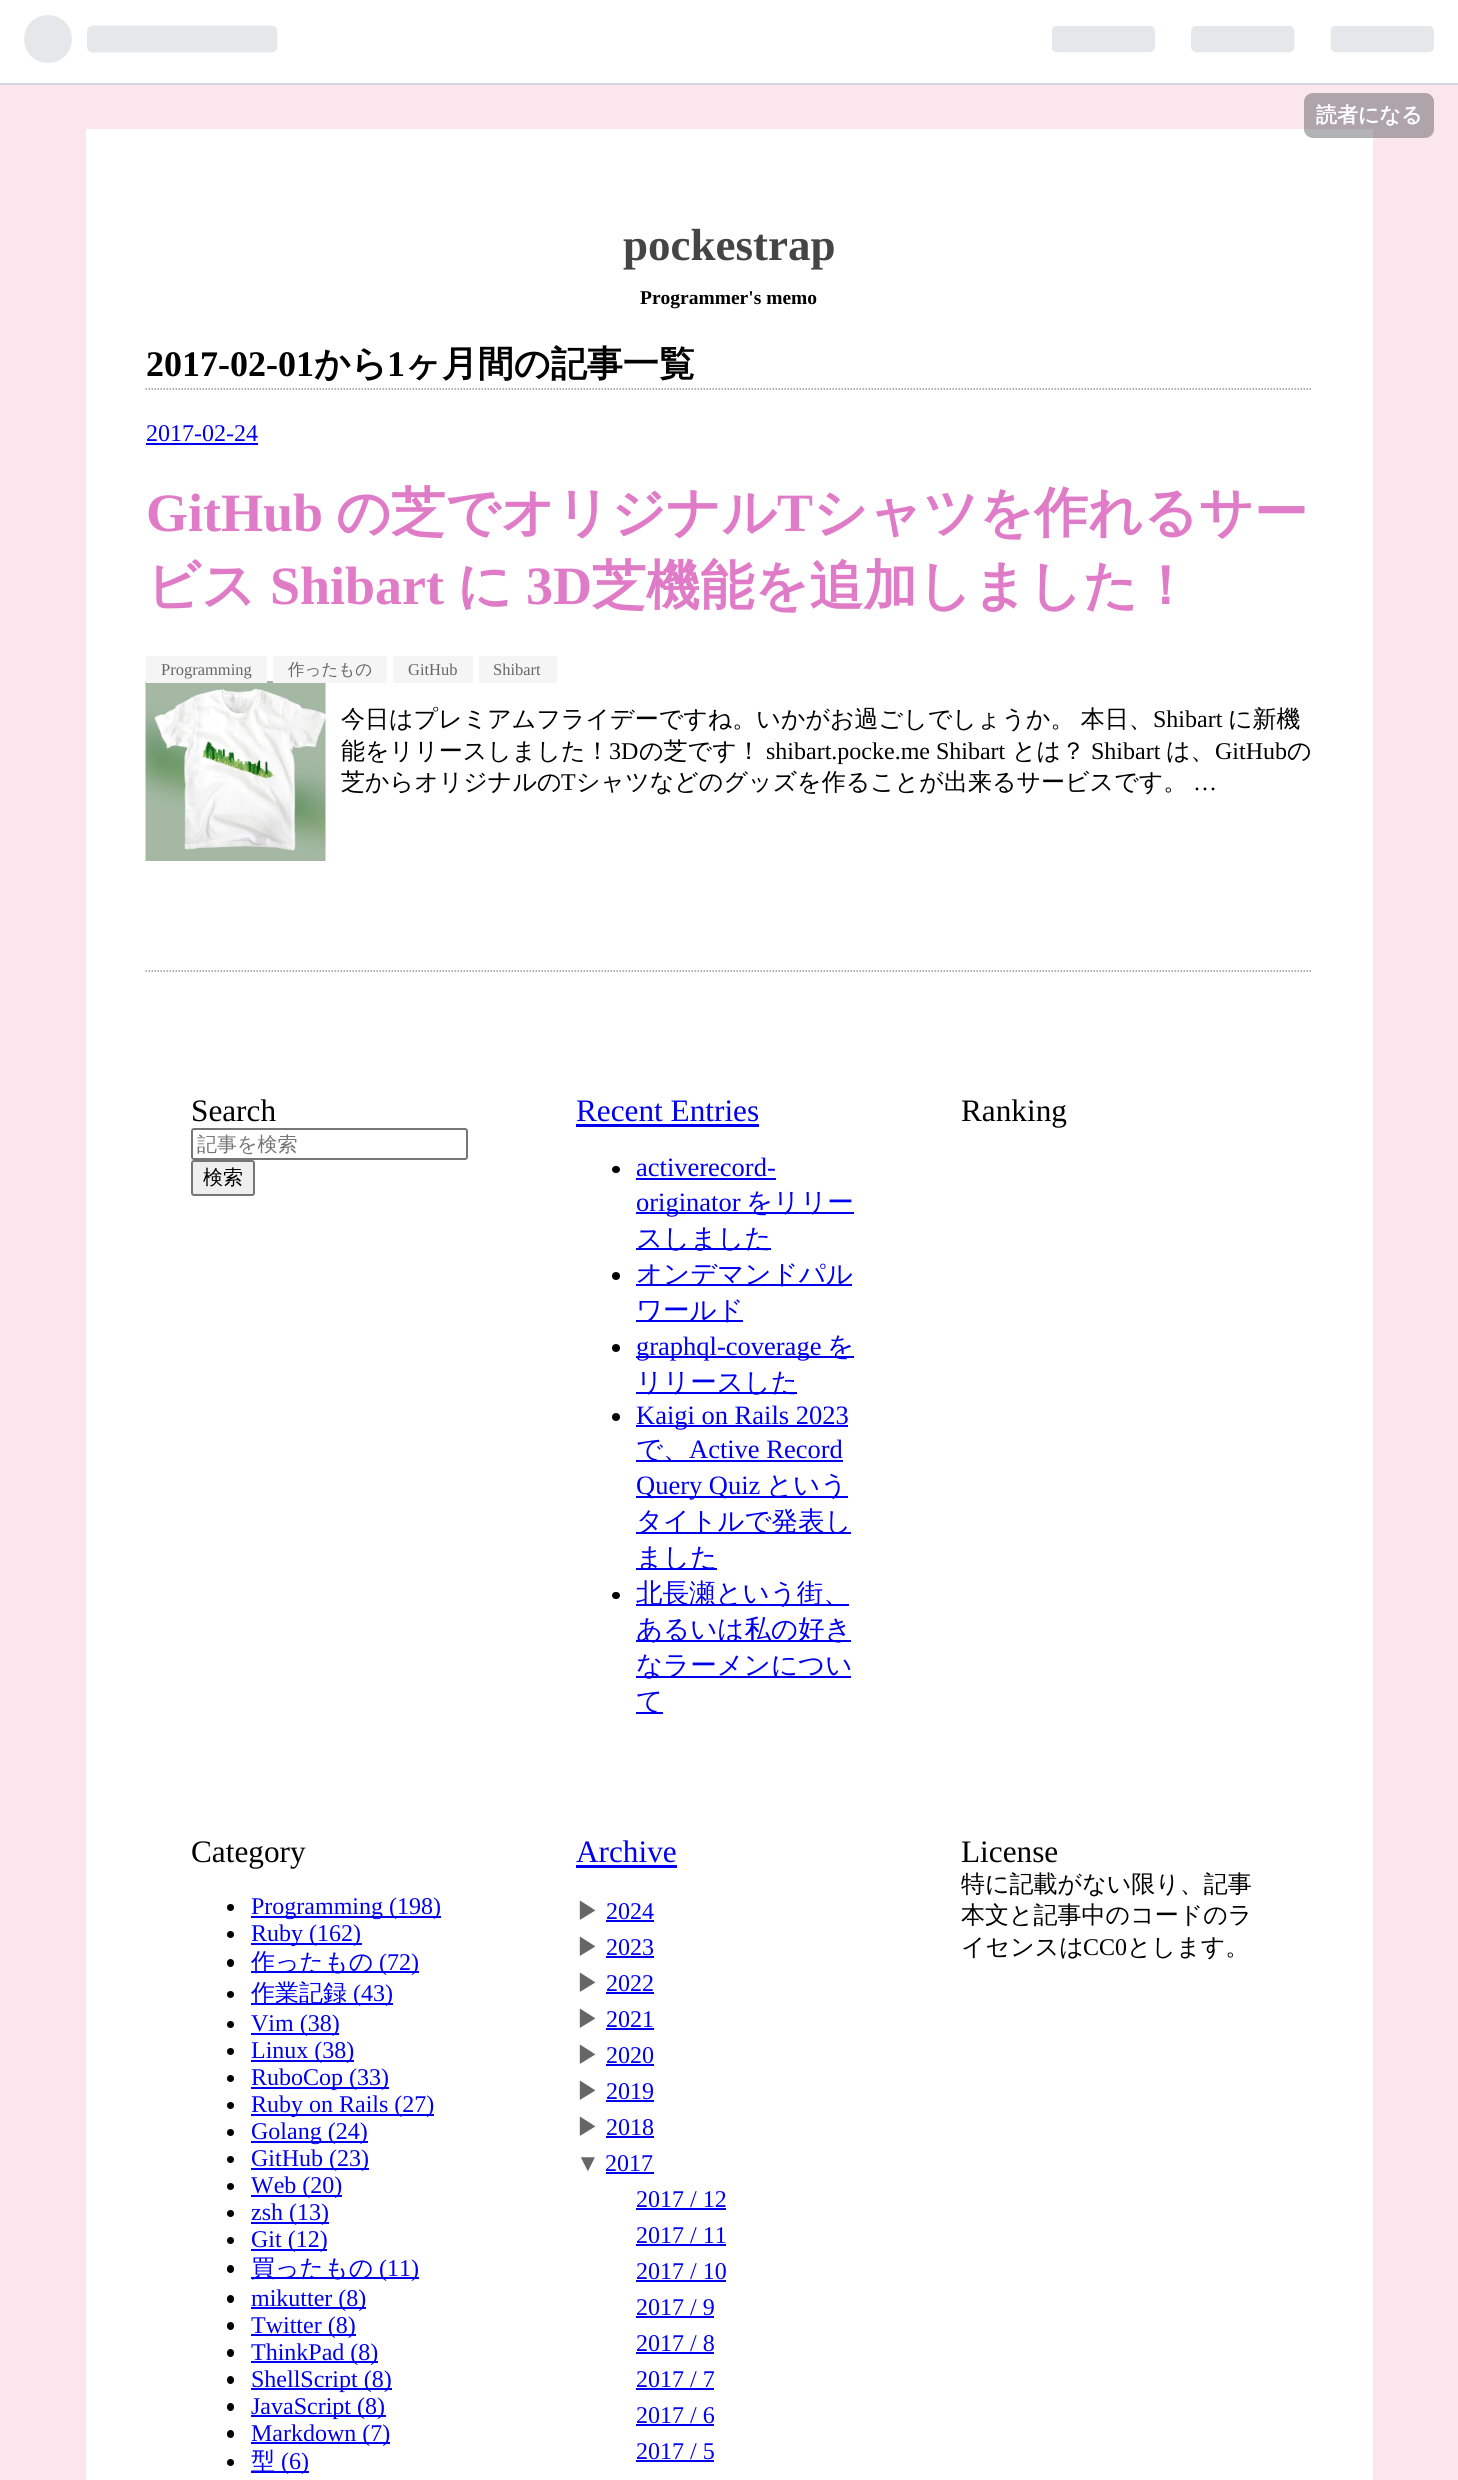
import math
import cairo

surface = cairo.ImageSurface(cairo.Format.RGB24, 1458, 2480)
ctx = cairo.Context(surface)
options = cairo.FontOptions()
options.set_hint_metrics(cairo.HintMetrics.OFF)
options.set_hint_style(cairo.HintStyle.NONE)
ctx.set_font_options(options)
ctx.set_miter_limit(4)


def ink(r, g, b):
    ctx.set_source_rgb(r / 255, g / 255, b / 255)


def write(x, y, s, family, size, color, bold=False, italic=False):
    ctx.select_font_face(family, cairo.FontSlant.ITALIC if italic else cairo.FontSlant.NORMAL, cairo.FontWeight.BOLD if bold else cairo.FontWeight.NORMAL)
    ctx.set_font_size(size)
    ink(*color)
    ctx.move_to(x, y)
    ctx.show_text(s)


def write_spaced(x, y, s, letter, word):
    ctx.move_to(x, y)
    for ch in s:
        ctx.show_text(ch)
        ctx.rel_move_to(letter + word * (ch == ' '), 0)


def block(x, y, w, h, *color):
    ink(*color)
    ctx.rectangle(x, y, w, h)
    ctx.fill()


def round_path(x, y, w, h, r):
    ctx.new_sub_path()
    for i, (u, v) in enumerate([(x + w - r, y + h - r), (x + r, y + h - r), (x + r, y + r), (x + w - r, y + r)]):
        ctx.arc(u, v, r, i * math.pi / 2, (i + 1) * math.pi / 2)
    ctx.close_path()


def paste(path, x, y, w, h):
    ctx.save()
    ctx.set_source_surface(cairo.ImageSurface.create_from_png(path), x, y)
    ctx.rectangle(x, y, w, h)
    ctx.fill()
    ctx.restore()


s1 = dict(family="WenQuanYi Zen Hei", size=21, color=(255, 255, 255), bold=True)
s2 = dict(family="Liberation Serif", size=45, color=(69, 69, 69), bold=True)
s3 = dict(family="Liberation Serif", size=19.5, color=(0, 0, 0), bold=True)
s4 = dict(family="Liberation Serif", size=36, color=(0, 0, 0), bold=True)
s5 = dict(family="WenQuanYi Zen Hei", size=36, color=(0, 0, 0), bold=True)
s6 = dict(family="Liberation Serif", size=24, color=(0, 0, 238))
s7 = dict(family="Liberation Serif", size=54, color=(224, 123, 199), bold=True)
s8 = dict(family="WenQuanYi Zen Hei", size=54, color=(224, 123, 199), bold=True)
s9 = dict(family="Liberation Serif", size=16.5, color=(102, 102, 102))
s10 = dict(family="WenQuanYi Zen Hei Medium", size=16.5, color=(102, 102, 102))
s11 = dict(family="Liberation Serif", size=24, color=(0, 0, 0))
s12 = dict(family="WenQuanYi Zen Hei Medium", size=24, color=(0, 0, 0))
s13 = dict(family="Liberation Serif", size=31.25, color=(0, 0, 0))
s14 = dict(family="WenQuanYi Zen Hei Medium", size=20, color=(117, 117, 117))
s15 = dict(family="WenQuanYi Zen Hei Medium", size=20, color=(0, 0, 0))
s16 = dict(family="Liberation Serif", size=31.25, color=(0, 0, 238))
s17 = dict(family="Liberation Serif", size=26.5, color=(0, 0, 238))
s18 = dict(family="WenQuanYi Zen Hei Medium", size=26.5, color=(0, 0, 238))
s19 = dict(family="WenQuanYi Zen Hei Medium", size=24, color=(0, 0, 238))
s20 = dict(family="WenQuanYi Zen Hei Medium", size=24, color=(102, 102, 102))
s21 = dict(family="Liberation Serif", size=24, color=(102, 102, 102))

ink(251, 230, 238)
ctx.paint()
block(0, 0, 1458, 83, 255, 255, 255)
block(0, 83, 1458, 2, 210, 216, 221)
paste("pic1.png", 24, 15, 254, 48)
paste("pic2.png", 1052, 26, 382, 27)
block(86, 129, 1287, 2351, 255, 255, 255)
ctx.set_source_rgba(0.239, 0.259, 0.271, 0.4)
round_path(1304, 93, 130, 45, 9)
ctx.fill()
write(1316, 122, "読者になる", **s1)
write(623, 260, "pockestrap", **s2)
write(640, 304, "Programmer's memo", **s3)
ctx.new_path()
ctx.move_to(145.5, 389)
ctx.line_to(1312.5, 389)
ink(153, 153, 153)
ctx.set_line_width(1.5)
ctx.set_dash([1.5, 1.5])
ctx.stroke()
write(146, 376, "2017-02-01", **s4)
write(314, 376, "から", **s5)
write(387, 376, "1", **s4)
write(405, 376, "ヶ月間の記事一覧", **s5)
write(146, 441, "2017-02-24", **s6)
block(146, 443, 112, 2, 0, 0, 238)
write(146, 531, "GitHub", **s7)
write(336, 531, "の芝でオリジナル", **s8)
write(777, 531, "T", **s7)
write(813, 531, "シャツを作れるサー", **s8)
write(146, 604, "ビス", **s8)
write(270, 604, "Shibart", **s7)
write(457, 604, "に", **s8)
write(526, 604, "3D", **s7)
write(592, 604, "芝機能を追加しました！", **s8)
paste("pic3.png", 145, 681, 181, 180)
block(146, 656, 121, 27, 245, 245, 245)
write(161, 675, "Programming", **s9)
block(273, 656, 114, 27, 245, 245, 245)
write(288, 675, "作ったもの", **s10)
block(393, 656, 80, 27, 245, 245, 245)
write(408, 675, "GitHub", **s9)
block(479, 656, 78, 27, 245, 245, 245)
write(493, 675, "Shibart", **s9)
ctx.select_font_face("WenQuanYi Zen Hei Medium")
ctx.set_font_size(24)
ink(0, 0, 0)
write_spaced(341, 727, "今日はプレミアムフライデーですね。いかがお過ごしでしょうか。 本日、", 0, -1)
write(1153, 727, "Shibart", **s11)
write(1228, 727, "に新機", **s12)
write(341, 759, "能をリリースしました！", **s12)
write(609, 759, "3D", **s11)
write(639, 759, "の芝です！", **s12)
write(766, 759, "shibart.pocke.me Shibart", **s11)
write(1012, 759, "とは？", **s12)
write(1091, 759, "Shibart", **s11)
write(1166, 759, "は、", **s12)
write(1215, 759, "GitHub", **s11)
write(1287, 759, "の", **s12)
write(341, 790, "芝からオリジナルの", **s12)
write(561, 790, "T", **s11)
write(576, 790, "シャツなどのグッズを作ることが出来るサービスです。", **s12)
write(1193, 790, "…", **s11)
ctx.new_path()
ctx.move_to(145.5, 971)
ctx.line_to(1312.5, 971)
ink(153, 153, 153)
ctx.stroke()
write(191, 1121, "Search", **s13)
round_path(192, 1129, 275, 30, 2)
ink(118, 118, 118)
ctx.set_line_width(2)
ctx.set_dash([])
ctx.stroke()
write(197, 1151, "記事を検索", **s14)
ink(239, 239, 239)
round_path(192, 1161, 62, 34, 2)
ctx.fill_preserve()
ink(118, 118, 118)
ctx.stroke()
write(203, 1184, "検索", **s15)
write(576, 1121, "Recent Entries", **s16)
block(576, 1124, 183, 3, 0, 0, 238)
ink(0, 0, 0)
round_path(612, 1166, 8, 7, 3.5)
ctx.fill()
write(636, 1176, "activerecord-", **s17)
block(636, 1178, 140, 2, 0, 0, 238)
block(636, 1212, 218, 2, 0, 0, 238)
write(636, 1211, "originator", **s17)
write(746, 1211, "をリリー", **s18)
block(636, 1248, 135, 2, 0, 0, 238)
write(636, 1247, "スしました", **s18)
ink(0, 0, 0)
ctx.new_path()
ctx.arc(616, 1276, 4, 0, 2 * math.pi)
ctx.fill()
block(636, 1284, 216, 2, 0, 0, 238)
write(636, 1283, "オンデマンドパル", **s18)
block(636, 1320, 107, 2, 0, 0, 238)
write(636, 1319, "ワールド", **s18)
ink(0, 0, 0)
ctx.new_path()
ctx.arc(616, 1348, 4, 0, 2 * math.pi)
ctx.fill()
block(636, 1356, 218, 2, 0, 0, 238)
write(636, 1355, "graphql-coverage", **s17)
write(827, 1355, "を", **s18)
block(636, 1392, 161, 2, 0, 0, 238)
write(636, 1391, "リリースした", **s18)
ink(0, 0, 0)
ctx.new_path()
ctx.arc(616, 1417, 4, 0, 2 * math.pi)
ctx.fill()
block(636, 1425, 212, 2, 0, 0, 238)
write(636, 1424, "Kaigi on Rails 2023", **s17)
block(636, 1460, 207, 2, 0, 0, 238)
write(636, 1458, "で、", **s18)
write(689, 1458, "Active Record", **s17)
block(636, 1496, 212, 2, 0, 0, 238)
write(636, 1494, "Query Quiz", **s17)
write(766, 1494, "という", **s18)
block(636, 1532, 215, 2, 0, 0, 238)
write(636, 1530, "タイトルで発表し", **s18)
block(636, 1568, 81, 2, 0, 0, 238)
write(636, 1566, "ました", **s18)
ink(0, 0, 0)
round_path(612, 1592, 8, 7, 3.5)
ctx.fill()
block(636, 1604, 213, 2, 0, 0, 238)
write(636, 1602, "北長瀬という街、", **s18)
block(636, 1640, 215, 2, 0, 0, 238)
write(636, 1638, "あるいは私の好き", **s18)
block(636, 1676, 215, 2, 0, 0, 238)
write(636, 1674, "なラーメンについ", **s18)
block(636, 1712, 27, 2, 0, 0, 238)
write(636, 1710, "て", **s18)
write(961, 1121, "Ranking", **s13)
write(191, 1862, "Category", **s13)
ctx.new_path()
ctx.arc(230.5, 1907.5, 3.5, 0, 2 * math.pi)
ctx.fill()
block(251, 1916, 190, 2, 0, 0, 238)
write(251, 1914, "Programming (198)", **s6)
ink(0, 0, 0)
ctx.new_path()
ctx.arc(230.5, 1934.5, 3.5, 0, 2 * math.pi)
ctx.fill()
block(251, 1943, 111, 2, 0, 0, 238)
write(251, 1941, "Ruby (162)", **s6)
ink(0, 0, 0)
round_path(227, 1959, 7, 8, 3.5)
ctx.fill()
block(251, 1971, 168, 2, 0, 0, 238)
write(251, 1970, "作ったもの", **s19)
write(379, 1970, "(72)", **s6)
ink(0, 0, 0)
ctx.new_path()
ctx.arc(230.5, 1994.5, 3.5, 0, 2 * math.pi)
ctx.fill()
block(251, 2003, 142, 2, 0, 0, 238)
write(251, 2001, "作業記録", **s19)
write(353, 2001, "(43)", **s6)
ink(0, 0, 0)
ctx.new_path()
ctx.arc(230.5, 2024.5, 3.5, 0, 2 * math.pi)
ctx.fill()
block(251, 2033, 88, 2, 0, 0, 238)
write(251, 2031, "Vim (38)", **s6)
ink(0, 0, 0)
ctx.new_path()
ctx.arc(230.5, 2051.5, 3.5, 0, 2 * math.pi)
ctx.fill()
block(251, 2060, 103, 2, 0, 0, 238)
write(251, 2058, "Linux (38)", **s6)
ink(0, 0, 0)
ctx.new_path()
ctx.arc(230.5, 2078.5, 3.5, 0, 2 * math.pi)
ctx.fill()
block(251, 2087, 138, 2, 0, 0, 238)
write(251, 2085, "RuboCop (33)", **s6)
ink(0, 0, 0)
ctx.new_path()
ctx.arc(230.5, 2105.5, 3.5, 0, 2 * math.pi)
ctx.fill()
block(251, 2114, 183, 2, 0, 0, 238)
write(251, 2112, "Ruby on Rails (27)", **s6)
ink(0, 0, 0)
ctx.new_path()
ctx.arc(230.5, 2132.5, 3.5, 0, 2 * math.pi)
ctx.fill()
block(251, 2141, 117, 2, 0, 0, 238)
write(251, 2139, "Golang (24)", **s6)
ink(0, 0, 0)
ctx.new_path()
ctx.arc(230.5, 2159.5, 3.5, 0, 2 * math.pi)
ctx.fill()
block(251, 2168, 118, 2, 0, 0, 238)
write(251, 2166, "GitHub (23)", **s6)
ink(0, 0, 0)
ctx.new_path()
ctx.arc(230.5, 2186.5, 3.5, 0, 2 * math.pi)
ctx.fill()
block(251, 2195, 91, 2, 0, 0, 238)
write(251, 2193, "Web (20)", **s6)
ink(0, 0, 0)
ctx.new_path()
ctx.arc(230.5, 2213.5, 3.5, 0, 2 * math.pi)
ctx.fill()
block(251, 2222, 78, 2, 0, 0, 238)
write(251, 2220, "zsh (13)", **s6)
ink(0, 0, 0)
ctx.new_path()
ctx.arc(230.5, 2240.5, 3.5, 0, 2 * math.pi)
ctx.fill()
block(251, 2249, 76, 2, 0, 0, 238)
write(251, 2247, "Git (12)", **s6)
ink(0, 0, 0)
round_path(227, 2265, 7, 8, 3.5)
ctx.fill()
block(251, 2277, 168, 2, 0, 0, 238)
write(251, 2276, "買ったもの", **s19)
write(379, 2276, "(11)", **s6)
ink(0, 0, 0)
round_path(227, 2295, 7, 8, 3.5)
ctx.fill()
block(251, 2307, 115, 2, 0, 0, 238)
write(251, 2306, "mikutter (8)", **s6)
ink(0, 0, 0)
round_path(227, 2322, 7, 8, 3.5)
ctx.fill()
block(251, 2334, 105, 2, 0, 0, 238)
write(251, 2333, "Twitter (8)", **s6)
ink(0, 0, 0)
round_path(227, 2349, 7, 8, 3.5)
ctx.fill()
block(251, 2361, 127, 2, 0, 0, 238)
write(251, 2360, "ThinkPad (8)", **s6)
ink(0, 0, 0)
round_path(227, 2376, 7, 8, 3.5)
ctx.fill()
block(251, 2388, 141, 2, 0, 0, 238)
write(251, 2387, "ShellScript (8)", **s6)
ink(0, 0, 0)
round_path(227, 2403, 7, 8, 3.5)
ctx.fill()
block(251, 2415, 135, 2, 0, 0, 238)
write(251, 2414, "JavaScript (8)", **s6)
ink(0, 0, 0)
round_path(227, 2430, 7, 8, 3.5)
ctx.fill()
block(251, 2442, 139, 2, 0, 0, 238)
write(251, 2441, "Markdown (7)", **s6)
ink(0, 0, 0)
ctx.new_path()
ctx.arc(230.5, 2462.5, 3.5, 0, 2 * math.pi)
ctx.fill()
block(251, 2471, 58, 2, 0, 0, 238)
write(251, 2469, "型", **s19)
write(281, 2469, "(6)", **s6)
write(576, 1862, "Archive", **s16)
block(576, 1865, 101, 3, 0, 0, 238)
write(576, 1919, "▶", **s20)
write(606, 1919, "2024", **s6)
block(606, 1920, 48, 2, 0, 0, 238)
write(576, 1955, "▶", **s20)
write(606, 1955, "2023", **s6)
block(606, 1956, 48, 2, 0, 0, 238)
write(576, 1991, "▶", **s20)
write(606, 1991, "2022", **s6)
block(606, 1992, 48, 2, 0, 0, 238)
write(576, 2027, "▶", **s20)
write(606, 2027, "2021", **s6)
block(606, 2028, 48, 2, 0, 0, 238)
write(576, 2063, "▶", **s20)
write(606, 2063, "2020", **s6)
block(606, 2064, 48, 2, 0, 0, 238)
write(576, 2099, "▶", **s20)
write(606, 2099, "2019", **s6)
block(606, 2100, 48, 2, 0, 0, 238)
write(576, 2135, "▶", **s20)
write(606, 2135, "2018", **s6)
block(606, 2136, 48, 2, 0, 0, 238)
write(576, 2171, "▼", **s21)
write(605, 2171, "2017", **s6)
block(606, 2172, 48, 2, 0, 0, 238)
write(636, 2207, "2017 / 12", **s6)
block(636, 2208, 90, 2, 0, 0, 238)
write(636, 2243, "2017 / 11", **s6)
block(636, 2244, 90, 2, 0, 0, 238)
write(636, 2279, "2017 / 10", **s6)
block(636, 2280, 90, 2, 0, 0, 238)
write(636, 2315, "2017 / 9", **s6)
block(636, 2316, 78, 2, 0, 0, 238)
write(636, 2351, "2017 / 8", **s6)
block(636, 2352, 78, 2, 0, 0, 238)
write(636, 2387, "2017 / 7", **s6)
block(636, 2388, 78, 2, 0, 0, 238)
write(636, 2423, "2017 / 6", **s6)
block(636, 2424, 78, 2, 0, 0, 238)
write(636, 2459, "2017 / 5", **s6)
block(636, 2460, 78, 2, 0, 0, 238)
write(961, 1862, "License", **s13)
write(961, 1892, "特に記載がない限り、記事", **s12)
write(961, 1923, "本文と記事中のコードのラ", **s12)
write(961, 1955, "イセンスは", **s12)
write(1083, 1955, "CC0", **s11)
write(1127, 1955, "とします。", **s12)
surface.write_to_png("screenshot.png")
